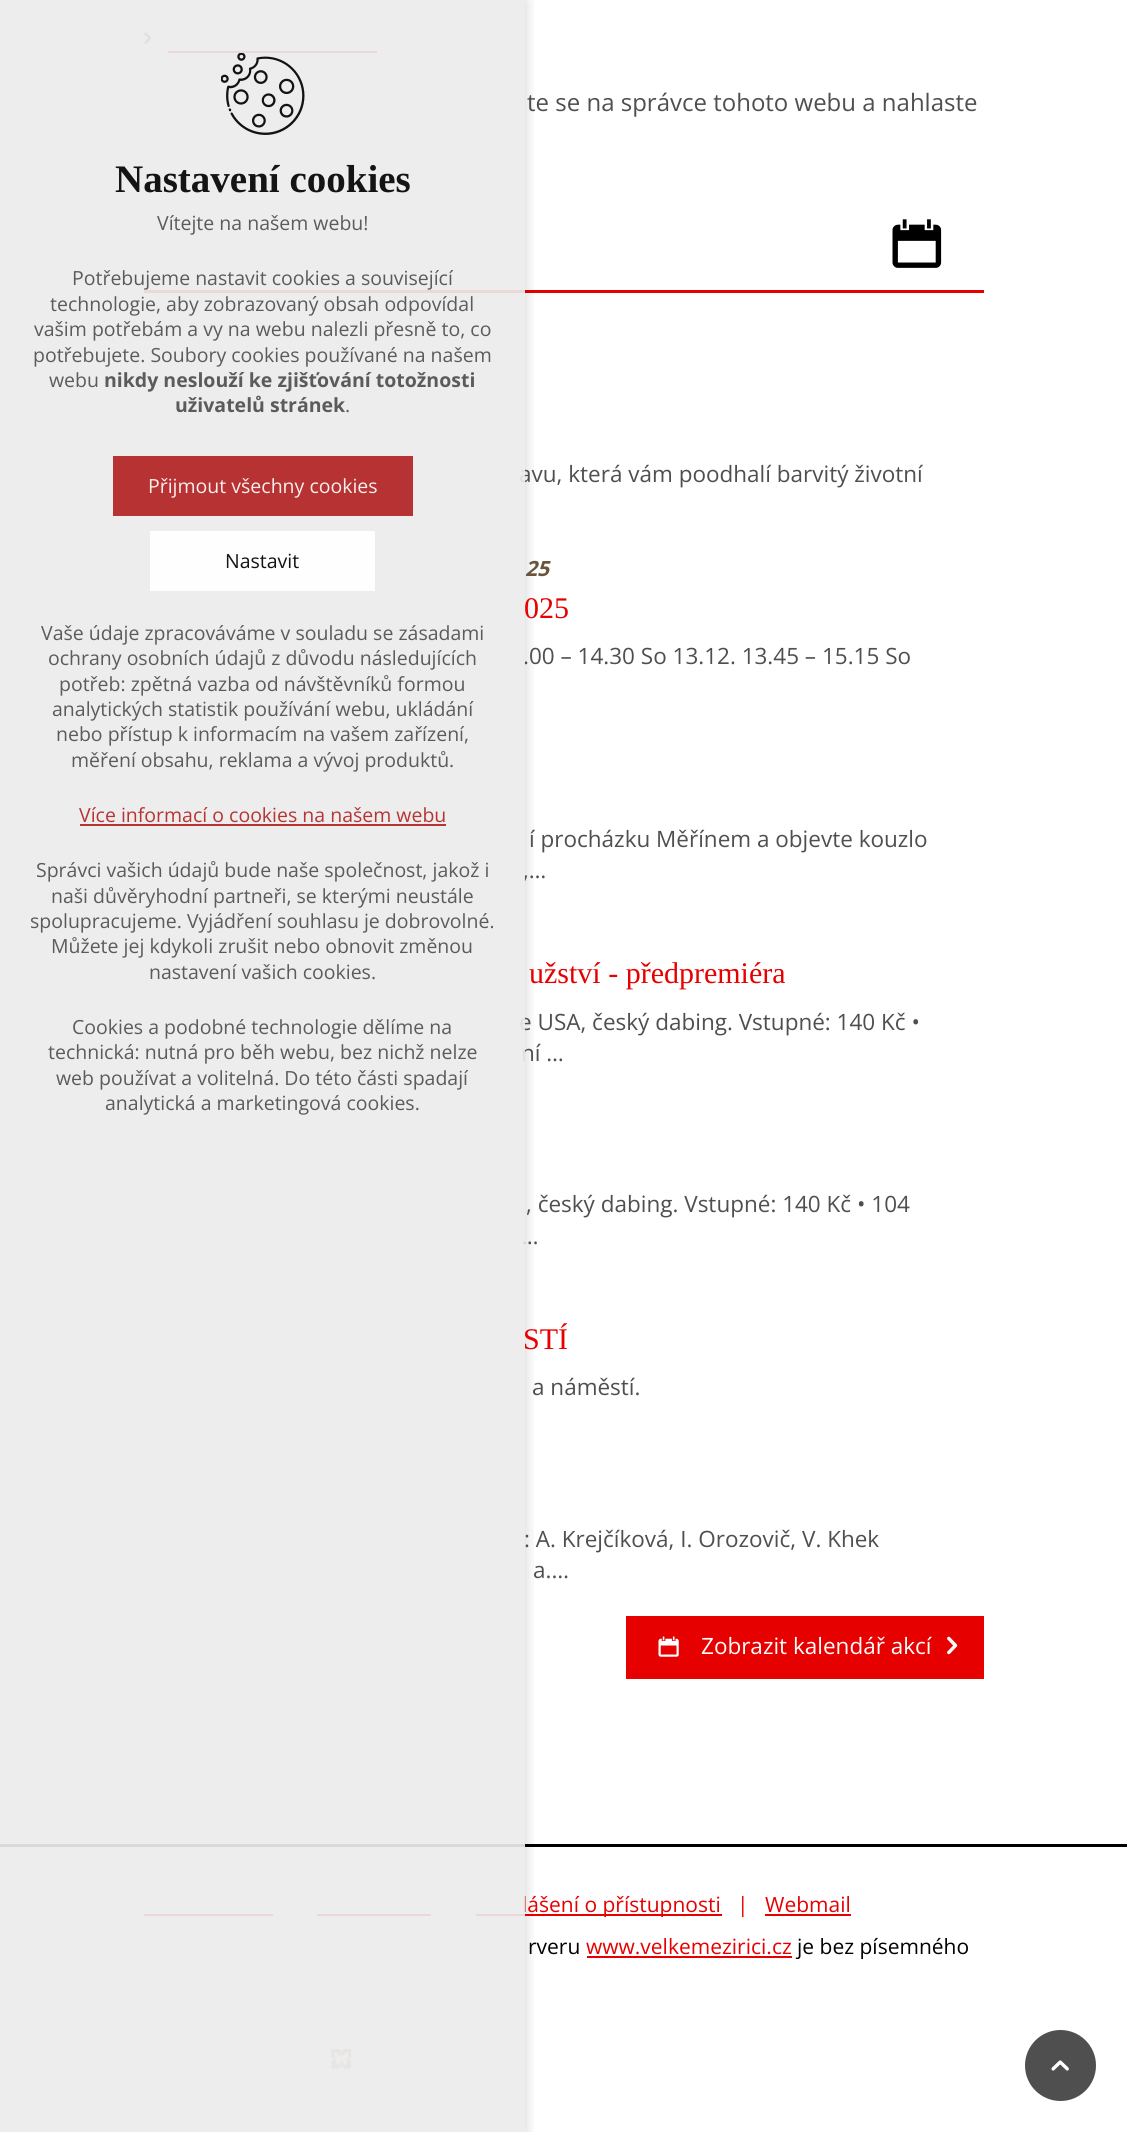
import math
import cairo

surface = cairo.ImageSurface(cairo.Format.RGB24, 1127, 2132)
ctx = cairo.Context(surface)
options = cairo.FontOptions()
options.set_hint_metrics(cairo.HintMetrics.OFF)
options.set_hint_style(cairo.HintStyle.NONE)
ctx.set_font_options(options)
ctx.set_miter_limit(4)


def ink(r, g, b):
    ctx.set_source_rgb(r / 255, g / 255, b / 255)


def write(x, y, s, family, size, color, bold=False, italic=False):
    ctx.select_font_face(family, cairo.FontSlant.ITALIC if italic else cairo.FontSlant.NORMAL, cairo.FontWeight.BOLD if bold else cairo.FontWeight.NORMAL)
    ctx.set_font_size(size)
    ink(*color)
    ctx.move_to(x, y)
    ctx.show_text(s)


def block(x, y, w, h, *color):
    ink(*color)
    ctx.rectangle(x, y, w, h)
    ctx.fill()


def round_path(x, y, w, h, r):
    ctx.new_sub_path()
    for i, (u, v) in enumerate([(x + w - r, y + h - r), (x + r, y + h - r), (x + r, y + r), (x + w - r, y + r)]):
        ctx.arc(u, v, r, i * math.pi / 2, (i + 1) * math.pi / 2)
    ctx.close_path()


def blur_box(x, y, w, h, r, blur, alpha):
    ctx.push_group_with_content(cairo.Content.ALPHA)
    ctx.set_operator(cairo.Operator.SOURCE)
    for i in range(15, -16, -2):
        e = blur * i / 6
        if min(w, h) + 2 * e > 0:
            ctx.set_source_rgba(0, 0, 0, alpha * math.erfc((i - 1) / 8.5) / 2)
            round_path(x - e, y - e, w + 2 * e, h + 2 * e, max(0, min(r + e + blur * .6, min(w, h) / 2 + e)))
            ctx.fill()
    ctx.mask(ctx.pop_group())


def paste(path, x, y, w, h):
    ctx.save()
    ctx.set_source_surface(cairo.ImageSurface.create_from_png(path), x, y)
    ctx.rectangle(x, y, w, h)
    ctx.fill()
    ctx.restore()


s1 = dict(family="Open Sans", size=22.5, color=(79, 79, 79))
s2 = dict(family="Open Sans", size=21, color=(230, 0, 0))
s3 = dict(family="Liberation Serif", size=39, color=(20, 20, 20), bold=True)
s4 = dict(family="Open Sans", size=19.5, color=(91, 91, 91))
s5 = dict(family="Open Sans", size=19.5, color=(91, 91, 91), bold=True)
s6 = dict(family="Open Sans", size=19.5, color=(249, 239, 239))
s7 = dict(family="Open Sans", size=19.5, color=(20, 20, 20))
s8 = dict(family="Open Sans", size=19.5, color=(184, 52, 52))
s9 = dict(family="Open Sans", size=24, color=(79, 79, 79))
s10 = dict(family="Open Sans", size=21, color=(105, 85, 61), bold=True, italic=True)
s11 = dict(family="Liberation Serif", size=30, color=(230, 0, 0))
s12 = dict(family="Open Sans", size=22.5, color=(255, 255, 255))
s13 = dict(family="Open Sans", size=21, color=(0, 0, 0))

ink(255, 255, 255)
ctx.paint()
paste("pic2.png", 144, 32, 7, 12)
block(168, 51, 209, 2, 230, 0, 0)
block(144, 290, 840, 3, 230, 0, 0)
block(0, 1844, 1127, 3, 0, 0, 0)
block(476, 1914, 246, 2, 230, 0, 0)
block(144, 1914, 129, 2, 230, 0, 0)
block(317, 1914, 114, 2, 230, 0, 0)
paste("pic6.png", 331, 2049, 20, 20)
ctx.save()
ctx.rectangle(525, 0, 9, 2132)
ctx.clip()
ink(1, 1, 1)
blur_box(0, 0, 525, 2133, 0, 7.5, 0.18)
ctx.restore()
write(519, 482, "avu, která vám poodhalí barvitý životní", **s1)
write(523, 664, ".00 – 14.30 So 13.12. 13.45 – 15.15 So", **s1)
write(523, 878, ",…", **s1)
write(519, 1030, "e USA, český dabing. Vstupné: 140 Kč •", **s1)
write(521, 1061, "ní …", **s1)
write(521, 1244, "…", **s1)
write(522, 1912, "lášení o přístupnosti", **s2)
ctx.set_source_rgba(0.922, 0.922, 0.922, 0.92)
ctx.rectangle(0, 0, 525, 2132)
ctx.fill()
paste("pic1.png", 221, 53, 84, 82)
write(115, 192, "Nastavení cookies", **s3)
write(157, 230, "Vítejte na našem webu!", **s4)
write(72, 285, "Potřebujeme nastavit cookies a související", **s4)
write(50, 311, "technologie, aby zobrazovaný obsah odpovídal", **s4)
write(34, 336, "vašim potřebám a vy na webu nalezli přesně to, co", **s4)
write(33, 362, "potřebujete. Soubory cookies používané na našem", **s4)
write(49, 387, "webu", **s4)
write(104, 387, "nikdy neslouží ke zjišťování totožnosti", **s5)
write(175, 412, "uživatelů stránek", **s5)
write(345, 412, ".", **s4)
ctx.set_source_rgba(0.698, 0.133, 0.133, 0.92)
ctx.rectangle(113, 456, 300, 60)
ctx.fill()
write(148, 493, "Přijmout všechny cookies", **s6)
ctx.set_source_rgba(1, 1, 1, 0.92)
ctx.rectangle(150, 531, 225, 60)
ctx.fill()
write(225, 568, "Nastavit", **s7)
write(41, 640, "Vaše údaje zpracováváme v souladu se zásadami", **s4)
write(48, 665, "ochrany osobních údajů z důvodu následujících", **s4)
write(59, 691, "potřeb: zpětná vazba od návštěvníků formou", **s4)
write(52, 716, "analytických statistik používání webu, ukládání", **s4)
write(56, 741, "nebo přístup k informacím na vašem zařízení,", **s4)
write(71, 767, "měření obsahu, reklama a vývoj produktů.", **s4)
write(79, 822, "Více informací o cookies na našem webu", **s8)
block(80, 824, 366, 2, 184, 52, 52)
write(36, 877, "Správci vašich údajů bude naše společnost, jakož i", **s4)
write(51, 903, "naši důvěryhodní partneři, se kterými neustále", **s4)
write(30, 928, "spolupracujeme. Vyjádření souhlasu je dobrovolné.", **s4)
write(51, 953, "Můžete jej kdykoli zrušit nebo obnovit změnou", **s4)
write(149, 979, "nastavení vašich cookies.", **s4)
write(72, 1034, "Cookies a podobné technologie dělíme na", **s4)
write(48, 1059, "technická: nutná pro běh webu, bez nichž nelze", **s4)
write(56, 1085, "web používat a volitelná. Do této části spadají", **s4)
write(105, 1110, "analytická a marketingová cookies.", **s4)
write(527, 111, "te se na správce tohoto webu a nahlaste", **s9)
paste("pic3.png", 892, 219, 50, 49)
write(525, 576, "25", **s10)
write(524, 618, "025", **s11)
write(529, 847, "í procházku Měřínem a objevte kouzlo", **s1)
write(529, 983, "užství - předpremiéra", **s11)
write(526, 1212, ", český dabing. Vstupné: 140 Kč • 104", **s1)
write(523, 1349, "STÍ", **s11)
write(532, 1395, "a náměstí.", **s1)
write(524, 1547, ": A. Krejčíková, I. Orozovič, V. Khek", **s1)
write(533, 1578, "a.…", **s1)
block(626, 1616, 358, 63, 230, 0, 0)
paste("pic4.png", 658, 1636, 21, 21)
write(701, 1654, "Zobrazit kalendář akcí", **s12)
paste("pic5.png", 947, 1636, 11, 19)
write(737, 1912, "|", **s2)
write(765, 1912, "Webmail", **s2)
block(765, 1914, 86, 2, 230, 0, 0)
write(528, 1954, "rveru", **s13)
write(586, 1954, "www.velkemezirici.cz", **s2)
block(587, 1956, 205, 2, 230, 0, 0)
write(797, 1954, "je bez písemného", **s13)
ink(79, 79, 79)
ctx.new_path()
ctx.arc(1060.5, 2065.5, 36.5, 0, 2 * math.pi)
ctx.fill_preserve()
ink(255, 255, 255)
ctx.stroke()
paste("pic7.png", 1051, 2060, 18, 11)
surface.write_to_png("screenshot.png")
